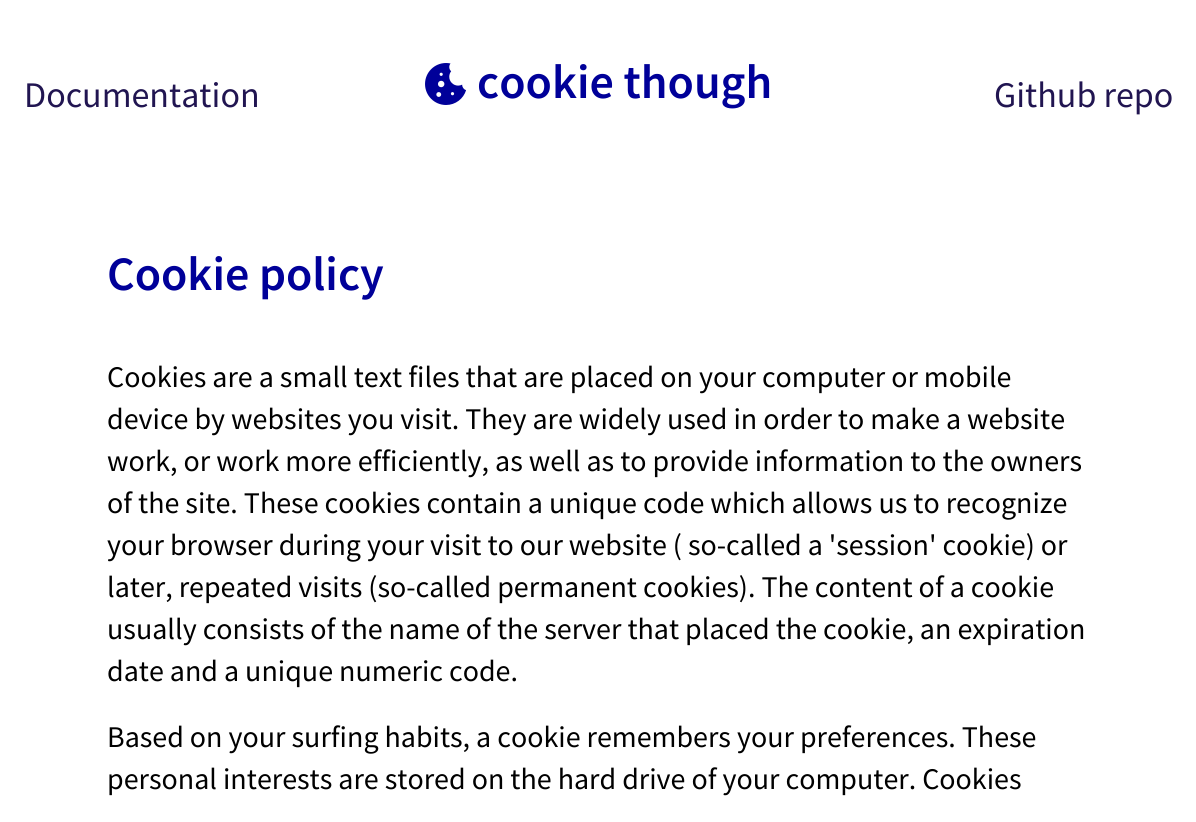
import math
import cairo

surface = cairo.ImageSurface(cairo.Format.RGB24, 1196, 822)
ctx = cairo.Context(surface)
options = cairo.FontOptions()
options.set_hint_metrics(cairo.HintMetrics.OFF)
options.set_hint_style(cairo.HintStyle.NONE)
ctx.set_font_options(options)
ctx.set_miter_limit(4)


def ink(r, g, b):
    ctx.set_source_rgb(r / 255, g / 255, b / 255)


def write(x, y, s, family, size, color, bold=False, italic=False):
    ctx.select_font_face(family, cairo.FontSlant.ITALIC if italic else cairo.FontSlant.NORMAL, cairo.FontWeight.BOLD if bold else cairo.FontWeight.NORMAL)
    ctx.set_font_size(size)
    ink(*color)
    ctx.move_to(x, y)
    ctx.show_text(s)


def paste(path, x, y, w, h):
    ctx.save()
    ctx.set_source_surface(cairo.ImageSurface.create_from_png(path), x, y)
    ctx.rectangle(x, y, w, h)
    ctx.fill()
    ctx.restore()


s1 = dict(family="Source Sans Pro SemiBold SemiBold", size=48, color=(0, 0, 153))
s2 = dict(family="Source Sans Pro", size=36, color=(33, 21, 81))
s3 = dict(family="Source Sans Pro", size=30, color=(0, 0, 0))

ink(255, 255, 255)
ctx.paint()
paste("pic1.png", 425, 63, 41, 42)
write(477, 98, "cookie though", **s1)
write(24, 107, "Documentation", **s2)
write(994, 107, "Github repo", **s2)
write(107, 290, "Cookie policy", **s1)
write(107, 387, "Cookies are a small text files that are placed on your computer or mobile", **s3)
write(107, 429, "device by websites you visit. They are widely used in order to make a website", **s3)
write(107, 471, "work, or work more efficiently, as well as to provide information to the owners", **s3)
write(107, 513, "of the site. These cookies contain a unique code which allows us to recognize", **s3)
write(107, 555, "your browser during your visit to our website ( so-called a 'session' cookie) or", **s3)
write(107, 597, "later, repeated visits (so-called permanent cookies). The content of a cookie", **s3)
write(107, 639, "usually consists of the name of the server that placed the cookie, an expiration", **s3)
write(107, 681, "date and a unique numeric code.", **s3)
write(107, 747, "Based on your surfing habits, a cookie remembers your preferences. These", **s3)
write(107, 789, "personal interests are stored on the hard drive of your computer. Cookies", **s3)
surface.write_to_png("screenshot.png")
